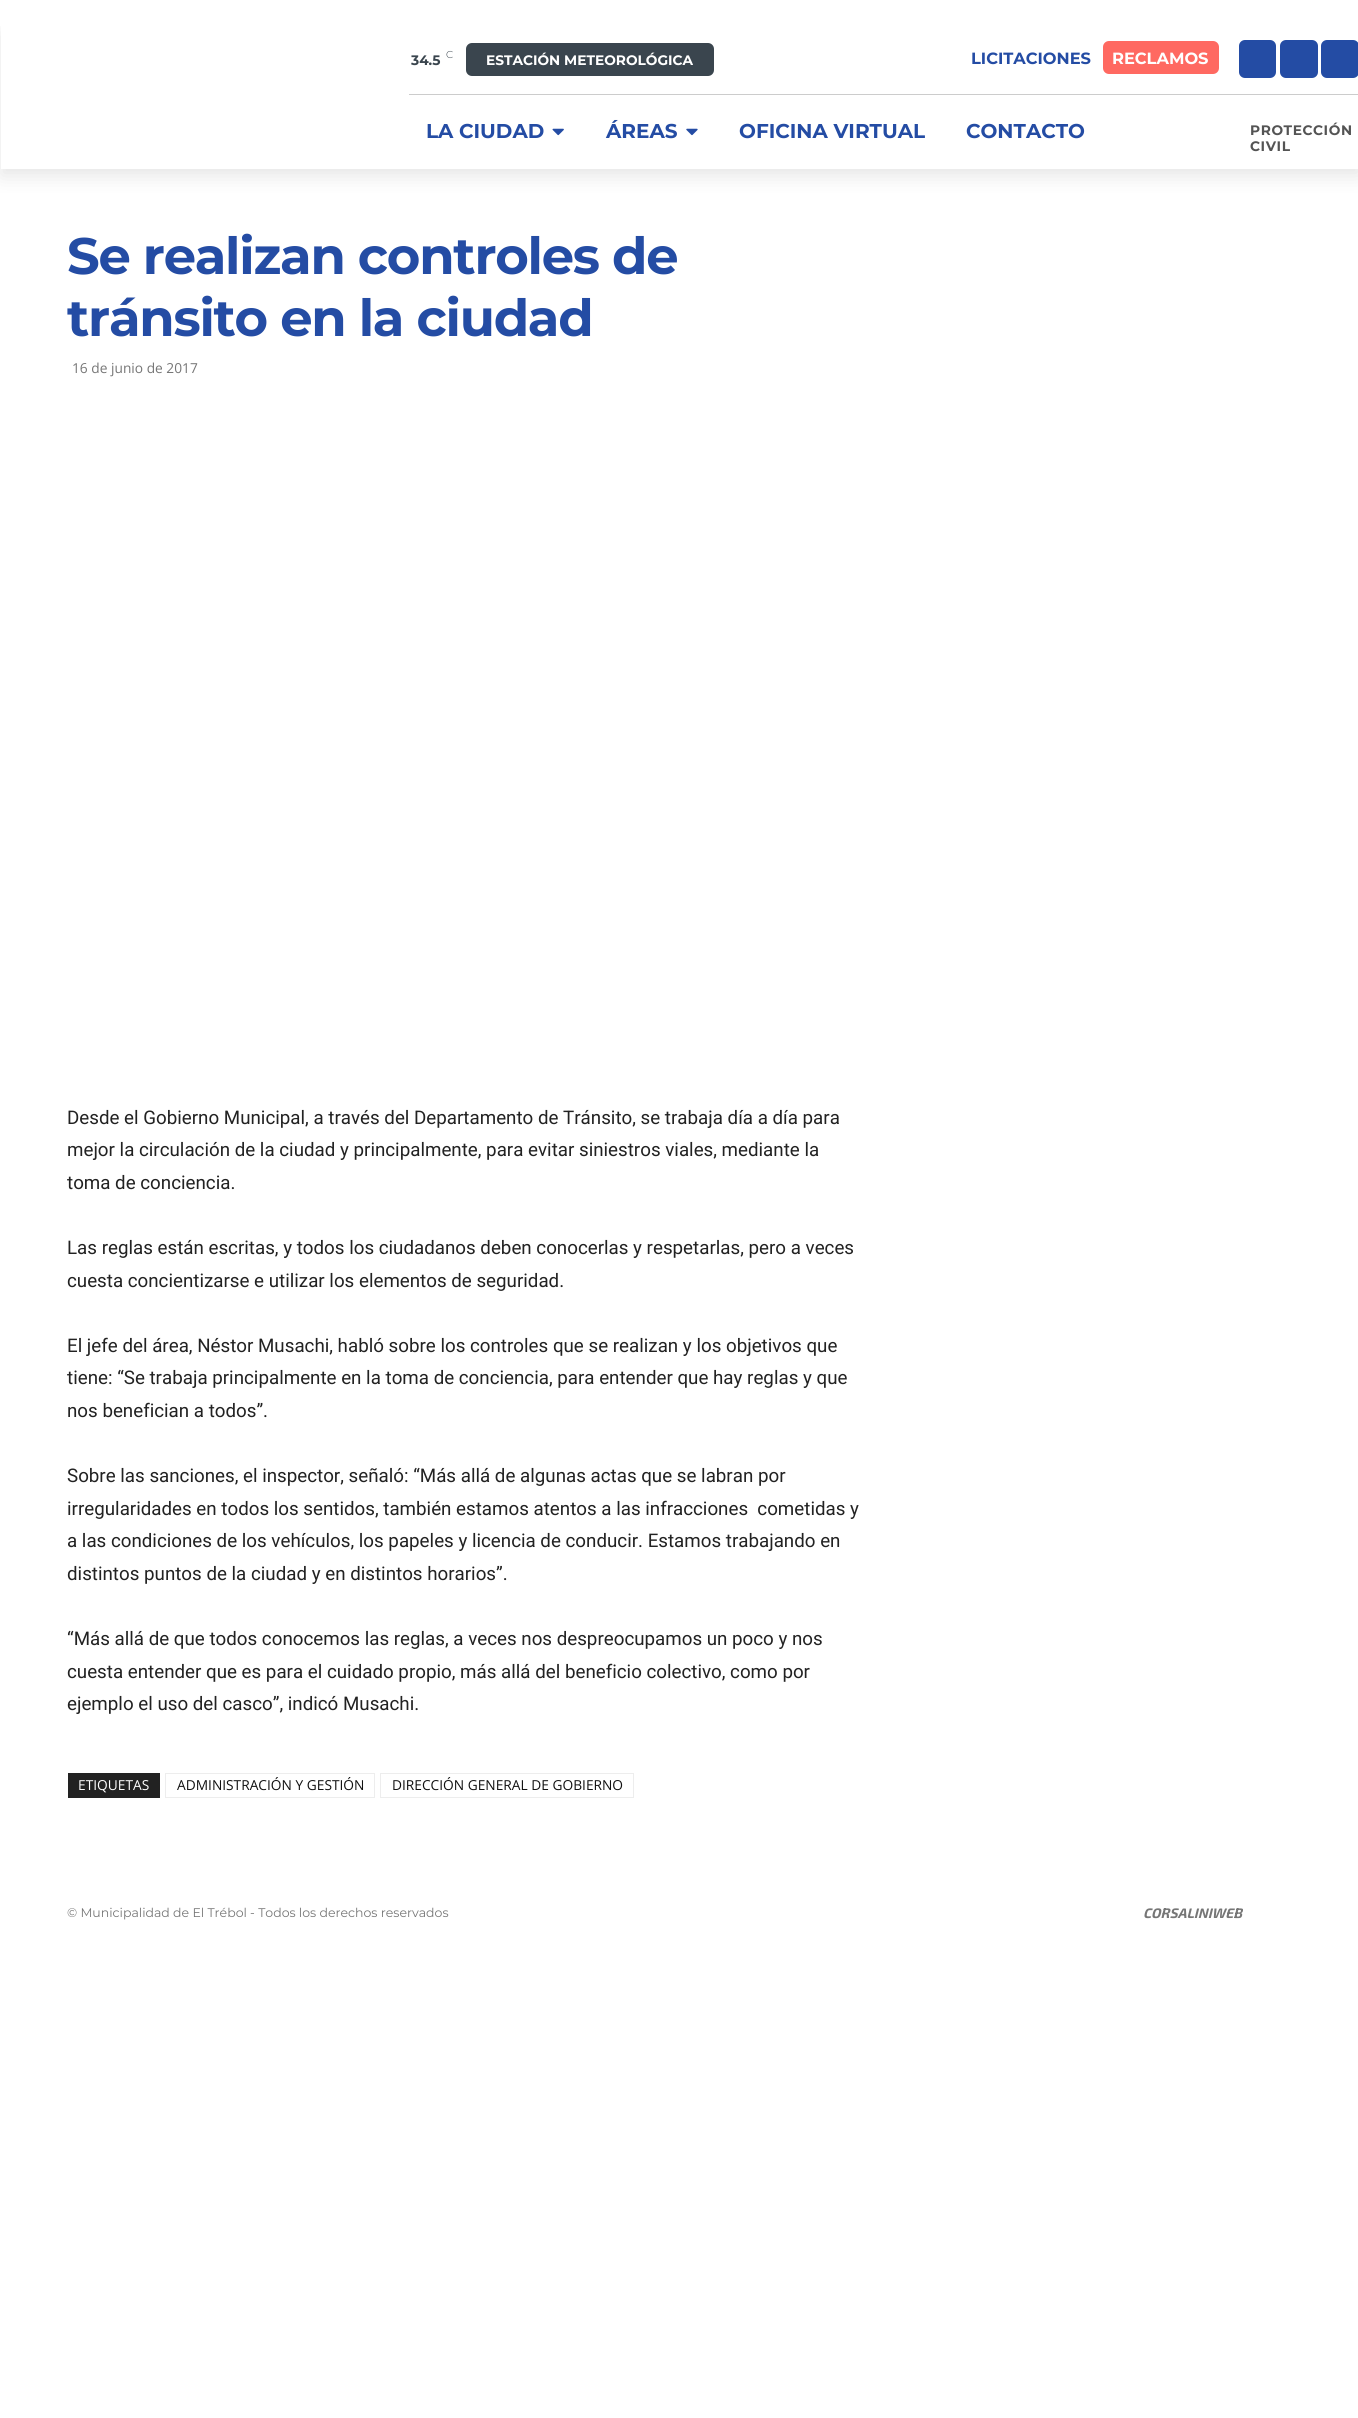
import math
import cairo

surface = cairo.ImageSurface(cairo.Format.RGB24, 1358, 2418)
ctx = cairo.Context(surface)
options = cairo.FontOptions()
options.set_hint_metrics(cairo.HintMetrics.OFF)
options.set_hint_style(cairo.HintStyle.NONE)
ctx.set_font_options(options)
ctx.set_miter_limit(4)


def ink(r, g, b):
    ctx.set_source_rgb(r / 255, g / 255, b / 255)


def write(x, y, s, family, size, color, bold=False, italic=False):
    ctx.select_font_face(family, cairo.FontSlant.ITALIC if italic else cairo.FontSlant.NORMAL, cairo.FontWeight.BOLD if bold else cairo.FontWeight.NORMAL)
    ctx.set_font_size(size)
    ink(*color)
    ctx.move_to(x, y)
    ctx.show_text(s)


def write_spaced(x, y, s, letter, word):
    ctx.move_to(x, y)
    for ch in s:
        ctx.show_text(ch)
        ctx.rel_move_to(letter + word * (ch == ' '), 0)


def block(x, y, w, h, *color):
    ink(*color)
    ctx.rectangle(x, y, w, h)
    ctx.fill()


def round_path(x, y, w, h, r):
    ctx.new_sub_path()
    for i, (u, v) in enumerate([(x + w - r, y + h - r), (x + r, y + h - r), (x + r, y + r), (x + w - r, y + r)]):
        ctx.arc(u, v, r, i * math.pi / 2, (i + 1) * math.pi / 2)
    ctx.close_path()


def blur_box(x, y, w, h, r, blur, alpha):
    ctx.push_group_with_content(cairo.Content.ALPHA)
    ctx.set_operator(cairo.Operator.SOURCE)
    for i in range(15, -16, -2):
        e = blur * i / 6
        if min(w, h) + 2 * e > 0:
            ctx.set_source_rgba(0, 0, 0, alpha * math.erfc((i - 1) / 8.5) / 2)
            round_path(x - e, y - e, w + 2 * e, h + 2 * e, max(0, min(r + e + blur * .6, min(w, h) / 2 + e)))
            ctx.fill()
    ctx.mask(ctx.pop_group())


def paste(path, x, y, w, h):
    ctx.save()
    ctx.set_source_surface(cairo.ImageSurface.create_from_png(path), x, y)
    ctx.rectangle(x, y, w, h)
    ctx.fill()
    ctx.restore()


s1 = dict(family="Montserrat", size=13.75, color=(58, 69, 78), bold=True)
s2 = dict(family="Montserrat Light", size=10, color=(58, 69, 78))
s3 = dict(family="Montserrat", size=13.75, color=(255, 255, 255), bold=True)
s4 = dict(family="Montserrat", size=16.25, color=(36, 76, 164), bold=True)
s5 = dict(family="Montserrat", size=16.25, color=(255, 255, 255), bold=True)
s6 = dict(family="Montserrat", size=20, color=(36, 76, 164), bold=True)
s7 = dict(family="Open Sans", size=13.75, color=(118, 118, 118))
s8 = dict(family="Roboto", size=18.75, color=(34, 34, 34))
s9 = dict(family="Open Sans", size=13.75, color=(255, 255, 255))
s10 = dict(family="Open Sans", size=13.75, color=(17, 17, 17))
s11 = dict(family="Montserrat", size=12.5, color=(118, 118, 118))
s12 = dict(family="Exo 2", size=13.75, color=(118, 118, 118), bold=True, italic=True)

ink(255, 255, 255)
ctx.paint()
ink(58, 69, 78)
round_path(466, 43, 248, 33, 6)
ctx.fill()
ink(255, 105, 97)
round_path(1103, 41, 116, 33, 6)
ctx.fill()
ink(36, 76, 164)
round_path(1239, 40, 37, 38, 6)
ctx.fill()
round_path(1280, 40, 38, 38, 6)
ctx.fill()
round_path(1321, 40, 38, 38, 6)
ctx.fill()
block(409, 94, 949, 1, 204, 204, 204)
paste("pic1.png", 552, 128, 12, 8)
paste("pic2.png", 686, 128, 12, 8)
ctx.save()
ctx.rectangle(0, 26, 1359, 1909)
ctx.clip()
ctx.set_fill_rule(cairo.FillRule.EVEN_ODD)
ctx.new_path()
ctx.move_to(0, 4)
ctx.line_to(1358, 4)
ctx.line_to(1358, 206)
ctx.line_to(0, 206)
ctx.close_path()
ctx.move_to(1, 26)
ctx.line_to(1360, 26)
ctx.line_to(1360, 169)
ctx.line_to(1, 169)
ctx.close_path()
ctx.clip()
ink(0, 0, 0)
blur_box(1, 34, 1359, 142, 0, 9.5, 0.1)
ctx.restore()
write(411, 65, "34.5", **s1)
write(446, 58, "C", **s2)
write(486, 65, "ESTACIÓN METEOROLÓGICA", **s3)
write(971, 64, "LICITACIONES", **s4)
write(1112, 64, "RECLAMOS", **s5)
write(426, 138, "LA CIUDAD", **s6)
write(606, 138, "ÁREAS", **s6)
write(739, 138, "OFICINA VIRTUAL", **s6)
write(966, 138, "CONTACTO", **s6)
ctx.set_font_size(13.75)
ink(84, 84, 84)
write_spaced(1250, 135, "PROTECCIÓN", 0.6, 0)
write_spaced(1250, 151, "CIVIL", 0.6, 0)
ctx.set_font_size(51.25)
ink(36, 76, 164)
write_spaced(67, 274, "Se realizan controles de", -1.25, 0)
write_spaced(67, 336, "tránsito en la ciudad", -1.25, 0)
write(72, 373, "16 de junio de 2017", **s7)
write(67, 1124, "Desde el Gobierno Municipal, a través del Departamento de Tránsito, se trabaja día a día para", **s8)
write(67, 1156, "mejor la circulación de la ciudad y principalmente, para evitar siniestros viales, mediante la", **s8)
write(67, 1189, "toma de conciencia.", **s8)
write(67, 1254, "Las reglas están escritas, y todos los ciudadanos deben conocerlas y respetarlas, pero a veces", **s8)
write(67, 1287, "cuesta concientizarse e utilizar los elementos de seguridad.", **s8)
write(67, 1352, "El jefe del área, Néstor Musachi, habló sobre los controles que se realizan y los objetivos que", **s8)
write(67, 1384, "tiene: “Se trabaja principalmente en la toma de conciencia, para entender que hay reglas y que", **s8)
write(67, 1417, "nos benefician a todos”.", **s8)
write(67, 1482, "Sobre las sanciones, el inspector, señaló: “Más allá de algunas actas que se labran por", **s8)
write(67, 1515, "irregularidades en todos los sentidos, también estamos atentos a las infracciones  cometidas y", **s8)
write(67, 1547, "a las condiciones de los vehículos, los papeles y licencia de conducir. Estamos trabajando en", **s8)
write(67, 1580, "distintos puntos de la ciudad y en distintos horarios”.", **s8)
write(67, 1645, "“Más allá de que todos conocemos las reglas, a veces nos despreocupamos un poco y nos", **s8)
write(67, 1678, "cuesta entender que es para el cuidado propio, más allá del beneficio colectivo, como por", **s8)
write(67, 1710, "ejemplo el uso del casco”, indicó Musachi.", **s8)
block(68, 1773, 92, 25, 34, 34, 34)
write(78, 1790, "ETIQUETAS", **s9)
ctx.rectangle(165.5, 1773.5, 209, 24)
ink(237, 237, 237)
ctx.set_line_width(1)
ctx.stroke()
write(177, 1790, "ADMINISTRACIÓN Y GESTIÓN", **s10)
ctx.rectangle(380.5, 1773.5, 253, 24)
ink(237, 237, 237)
ctx.stroke()
write(392, 1790, "DIRECCIÓN GENERAL DE GOBIERNO", **s10)
write(67, 1917, "© Municipalidad de El Trébol - Todos los derechos reservados", **s11)
write(1143, 1918, "CORSALINIWEB", **s12)
surface.write_to_png("screenshot.png")
